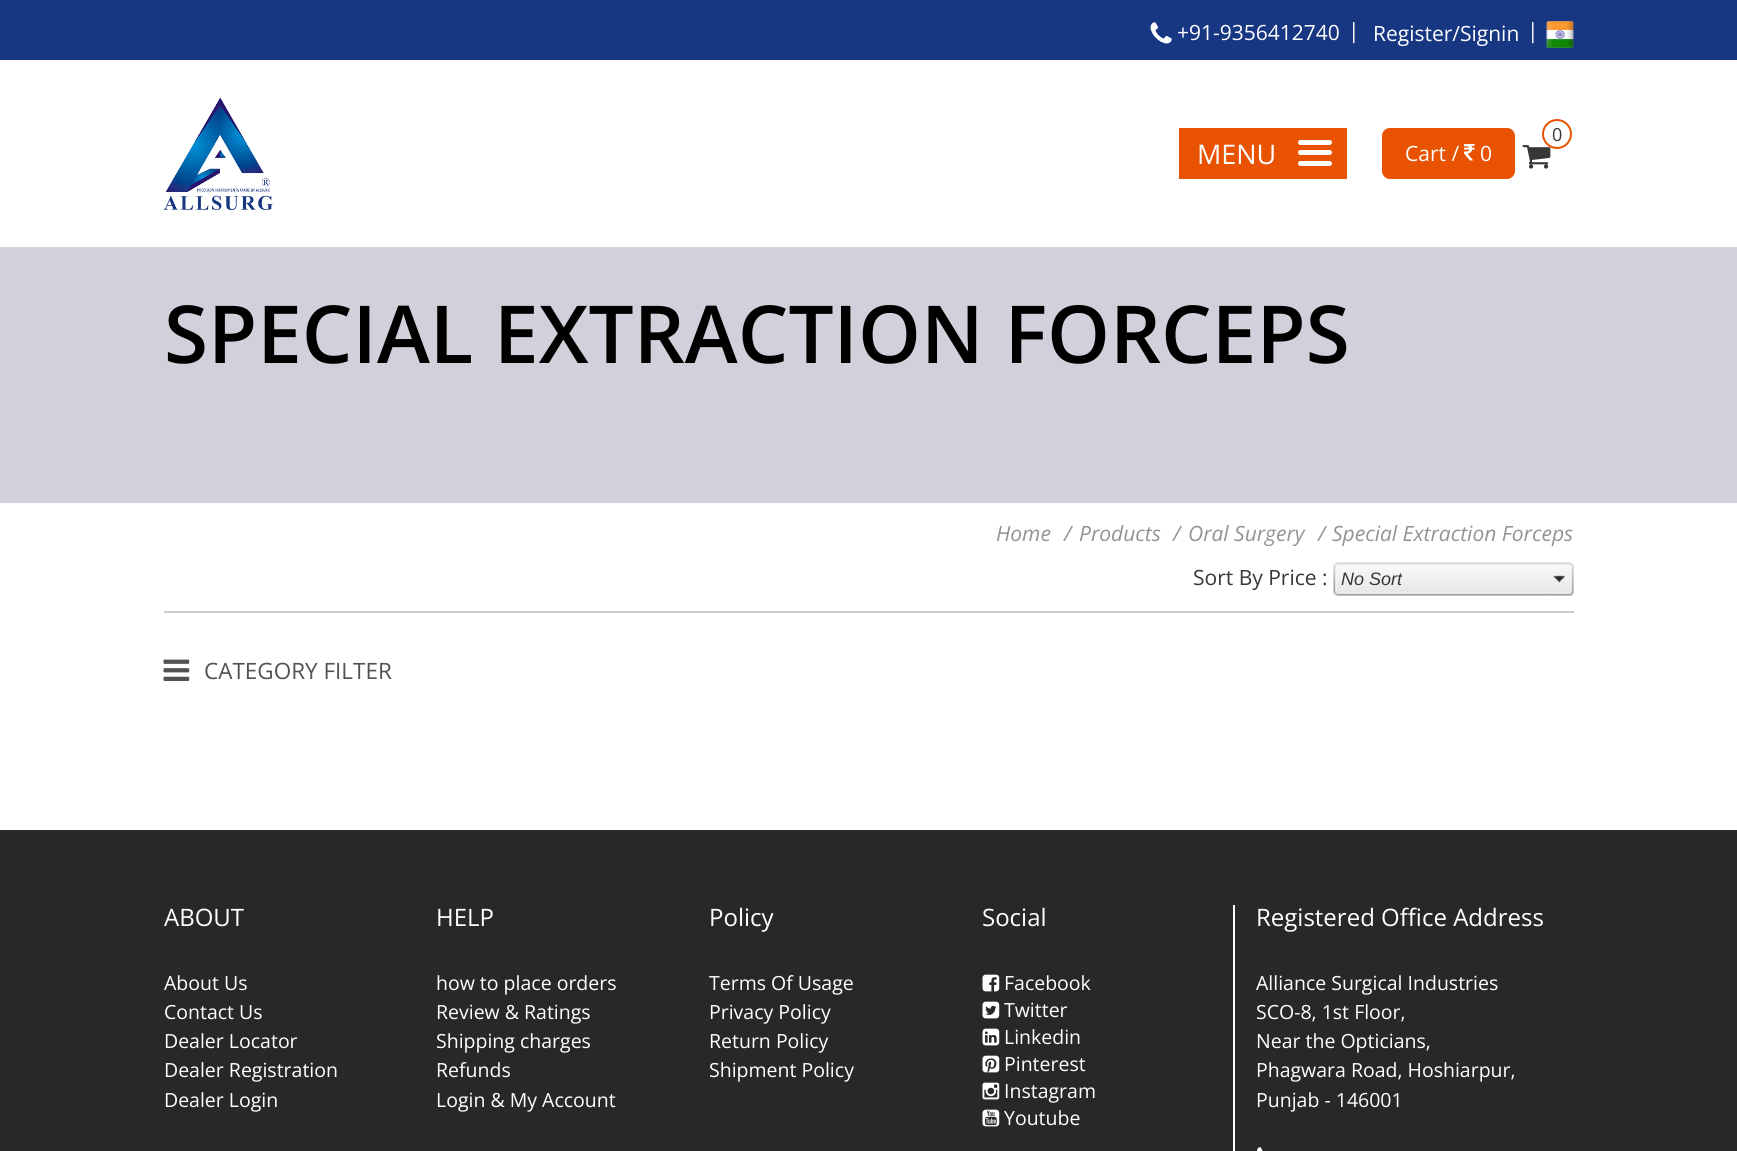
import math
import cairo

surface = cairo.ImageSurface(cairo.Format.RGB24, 1737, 1151)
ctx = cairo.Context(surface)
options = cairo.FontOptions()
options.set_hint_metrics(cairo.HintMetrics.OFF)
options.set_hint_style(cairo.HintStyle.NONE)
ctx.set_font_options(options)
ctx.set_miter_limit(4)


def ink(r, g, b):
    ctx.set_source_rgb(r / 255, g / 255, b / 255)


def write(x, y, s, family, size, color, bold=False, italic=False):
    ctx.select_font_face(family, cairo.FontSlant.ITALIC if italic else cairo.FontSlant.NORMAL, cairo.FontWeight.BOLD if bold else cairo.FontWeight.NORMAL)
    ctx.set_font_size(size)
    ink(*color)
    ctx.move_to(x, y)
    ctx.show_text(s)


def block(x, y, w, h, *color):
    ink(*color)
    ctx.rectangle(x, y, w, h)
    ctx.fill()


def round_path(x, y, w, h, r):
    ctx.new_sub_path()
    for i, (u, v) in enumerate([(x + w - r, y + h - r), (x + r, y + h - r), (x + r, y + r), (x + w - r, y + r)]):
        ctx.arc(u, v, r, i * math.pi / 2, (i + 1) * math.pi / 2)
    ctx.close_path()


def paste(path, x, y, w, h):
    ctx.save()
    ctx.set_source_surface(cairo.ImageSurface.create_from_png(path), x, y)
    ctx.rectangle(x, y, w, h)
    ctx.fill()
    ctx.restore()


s1 = dict(family="Open Sans", size=21, color=(255, 255, 255))
s2 = dict(family="Open Sans", size=27, color=(255, 255, 255))
s3 = dict(family="Open Sans", size=18, color=(55, 55, 55))
s4 = dict(family="Open Sans SemiBold", size=80, color=(0, 0, 0))
s5 = dict(family="Open Sans", size=21, color=(147, 147, 147), italic=True)
s6 = dict(family="Open Sans", size=21, color=(55, 55, 55))
s7 = dict(family="Liberation Sans", size=18, color=(55, 55, 55), italic=True)
s8 = dict(family="Open Sans", size=22.5, color=(82, 82, 82))
s9 = dict(family="Open Sans", size=24, color=(255, 255, 255))
s10 = dict(family="Open Sans", size=19.5, color=(255, 255, 255))

ink(255, 255, 255)
ctx.paint()
block(0, 0, 1737, 60, 23, 55, 131)
paste("pic1.png", 1150, 22, 22, 22)
write(1177, 40, "+91-9356412740", **s1)
write(1348, 38, "|", **s1)
write(1373, 41, "Register/Signin", **s1)
write(1527, 38, "|", **s1)
paste("pic2.png", 1546, 21, 28, 27)
paste("pic3.png", 163, 97, 110, 113)
block(1179, 128, 168, 51, 232, 82, 0)
write(1197, 164, "MENU", **s2)
round_path(1298, 140, 34, 5, 2.5)
ctx.fill()
round_path(1298, 150, 34, 5, 2.5)
ctx.fill()
round_path(1298, 161, 34, 5, 2.5)
ctx.fill()
paste("pic4.png", 1522, 145, 29, 24)
ctx.arc(1557, 134, 14, 0, 2 * math.pi)
ctx.fill_preserve()
ink(232, 82, 0)
ctx.stroke()
write(1552, 141, "0", **s3)
ink(232, 82, 0)
round_path(1382, 128, 133, 51, 8)
ctx.fill()
write(1405, 161, "Cart /", **s1)
paste("pic5.png", 1464, 144, 11, 17)
write(1480, 161, "0", **s1)
block(0, 247, 1737, 256, 209, 209, 219)
write(164, 363, "SPECIAL EXTRACTION FORCEPS", **s4)
block(164, 611, 1410, 2, 204, 205, 205)
write(996, 541, "Home", **s5)
write(1064, 541, "/", **s5)
write(1079, 541, "Products", **s5)
write(1173, 541, "/", **s5)
write(1188, 541, "Oral Surgery", **s5)
write(1318, 541, "/", **s5)
write(1332, 541, "Special Extraction Forceps", **s5)
write(1193, 585, "Sort By Price :", **s6)
paste("pic6.png", 1333, 562, 214, 34)
write(1341, 585, "No Sort", **s7)
paste("pic7.png", 1546, 562, 28, 34)
paste("pic8.png", 163, 659, 27, 22)
write(204, 679, "CATEGORY FILTER", **s8)
block(0, 830, 1737, 321, 40, 40, 40)
write(164, 926, "ABOUT", **s9)
write(164, 990, "About Us", **s10)
write(164, 1019, "Contact Us", **s10)
write(164, 1048, "Dealer Locator", **s10)
write(164, 1077, "Dealer Registration", **s10)
write(164, 1107, "Dealer Login", **s10)
write(436, 926, "HELP", **s9)
write(436, 990, "how to place orders", **s10)
write(436, 1019, "Review & Ratings", **s10)
write(436, 1048, "Shipping charges", **s10)
write(436, 1077, "Refunds", **s10)
write(436, 1107, "Login & My Account", **s10)
write(709, 926, "Policy", **s9)
write(709, 990, "Terms Of Usage", **s10)
write(709, 1019, "Privacy Policy", **s10)
write(709, 1048, "Return Policy", **s10)
write(709, 1077, "Shipment Policy", **s10)
write(982, 926, "Social", **s9)
paste("pic9.png", 982, 974, 18, 18)
write(1004, 990, "Facebook", **s10)
paste("pic10.png", 982, 1001, 18, 18)
write(1004, 1017, "Twitter", **s10)
paste("pic11.png", 982, 1028, 18, 18)
write(1004, 1044, "Linkedin", **s10)
paste("pic12.png", 982, 1055, 18, 18)
write(1004, 1071, "Pinterest", **s10)
paste("pic13.png", 982, 1082, 18, 18)
write(1004, 1098, "Instagram", **s10)
paste("pic14.png", 982, 1109, 18, 18)
write(1004, 1125, "Youtube", **s10)
block(1233, 905, 2, 246, 255, 255, 255)
write(1256, 926, "Registered Office Address", **s9)
write(1256, 990, "Alliance Surgical Industries", **s10)
write(1256, 1019, "SCO-8, 1st Floor,", **s10)
write(1256, 1048, "Near the Opticians,", **s10)
write(1256, 1077, "Phagwara Road, Hoshiarpur,", **s10)
write(1256, 1107, "Punjab - 146001", **s10)
paste("pic15.png", 1257, 1147, 6, 4)
surface.write_to_png("screenshot.png")
